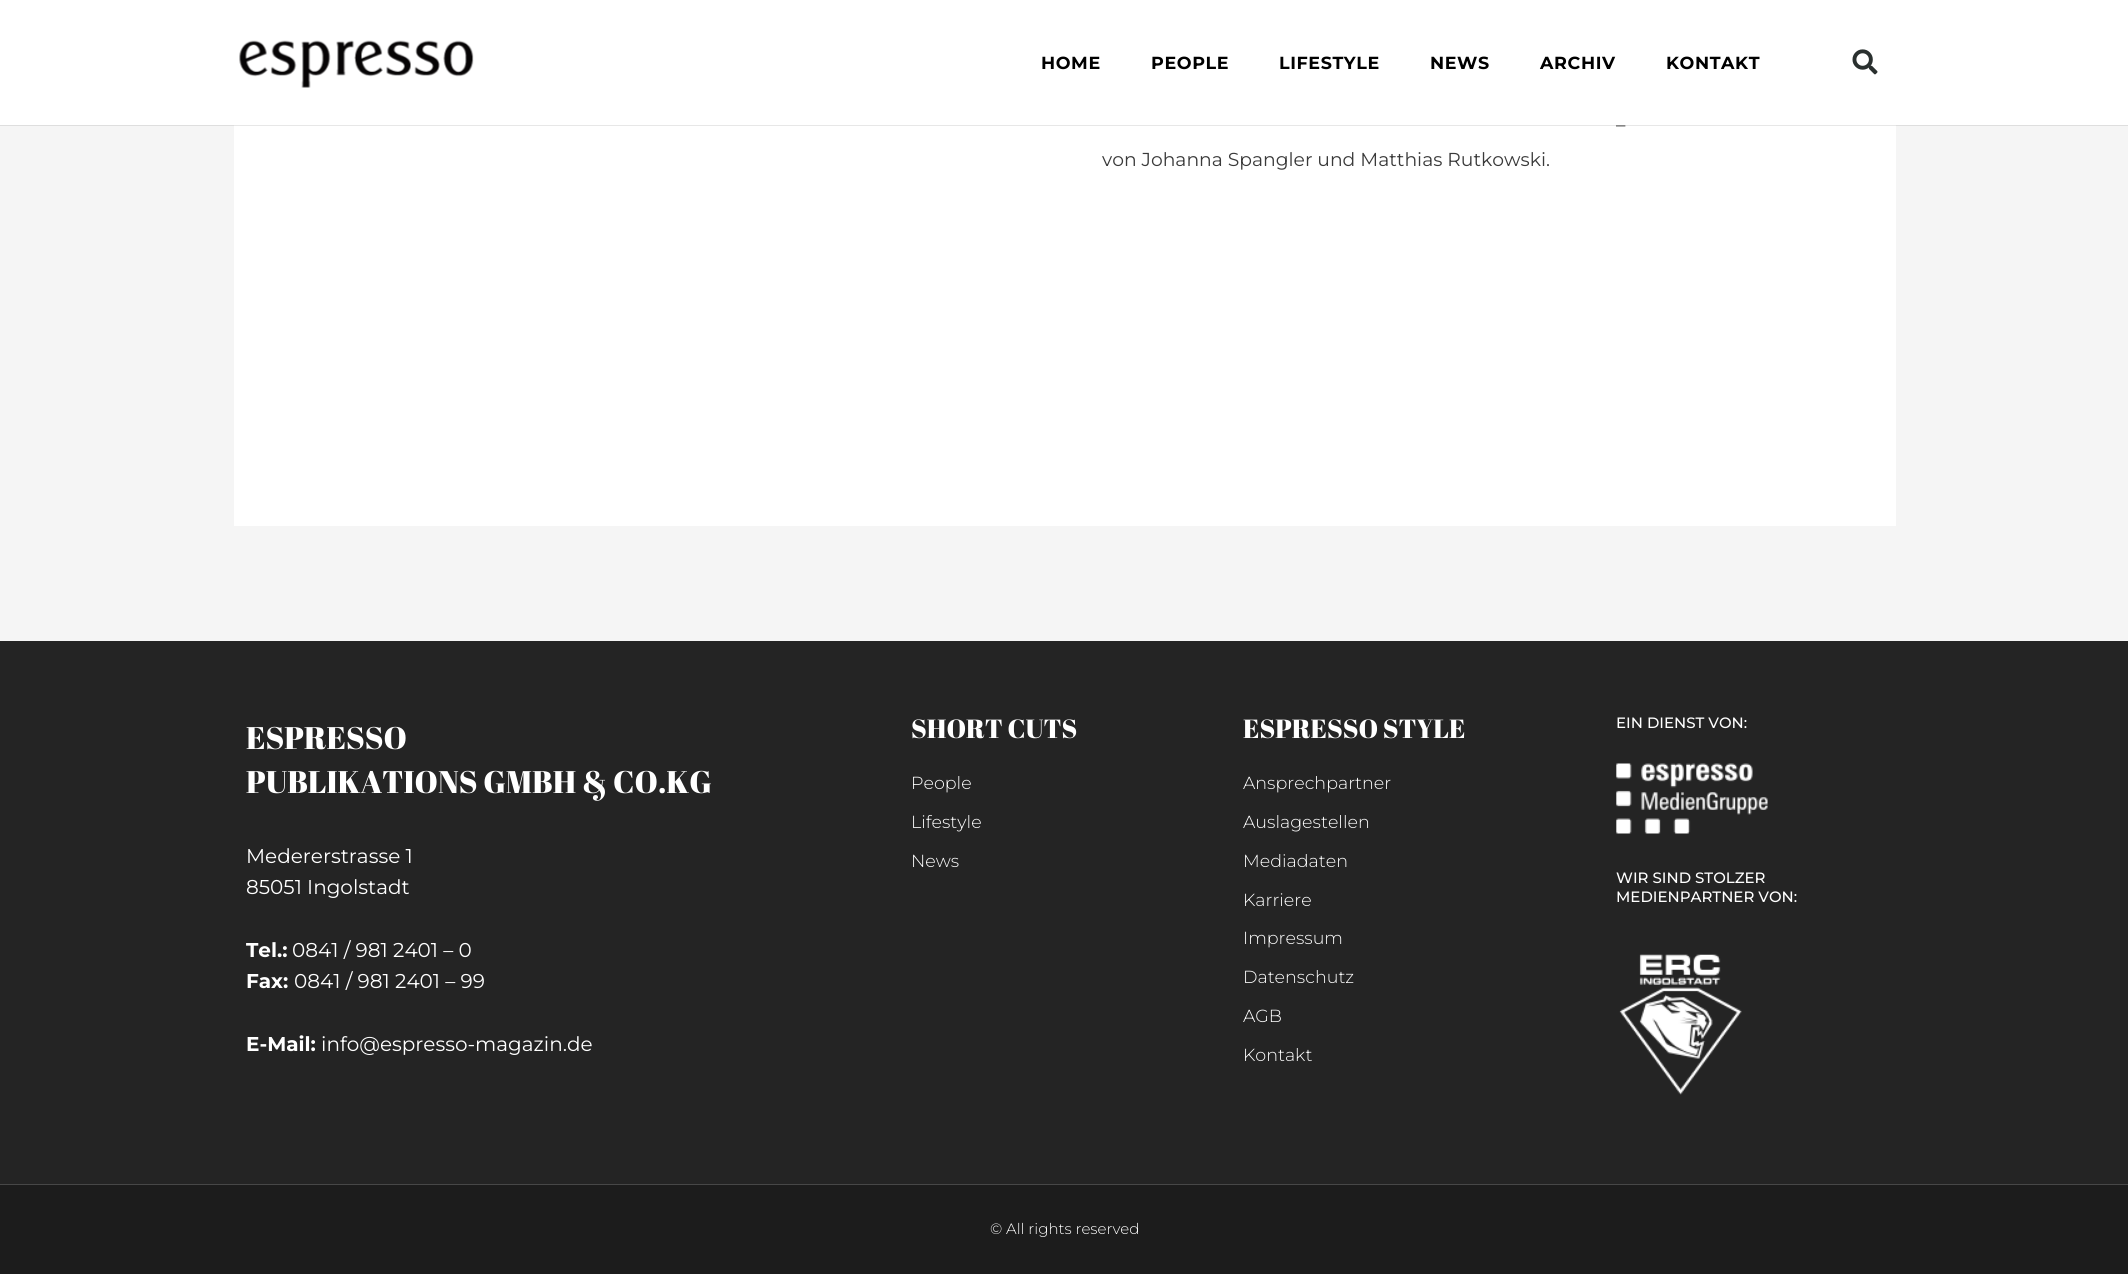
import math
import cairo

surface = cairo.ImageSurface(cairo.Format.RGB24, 2128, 1274)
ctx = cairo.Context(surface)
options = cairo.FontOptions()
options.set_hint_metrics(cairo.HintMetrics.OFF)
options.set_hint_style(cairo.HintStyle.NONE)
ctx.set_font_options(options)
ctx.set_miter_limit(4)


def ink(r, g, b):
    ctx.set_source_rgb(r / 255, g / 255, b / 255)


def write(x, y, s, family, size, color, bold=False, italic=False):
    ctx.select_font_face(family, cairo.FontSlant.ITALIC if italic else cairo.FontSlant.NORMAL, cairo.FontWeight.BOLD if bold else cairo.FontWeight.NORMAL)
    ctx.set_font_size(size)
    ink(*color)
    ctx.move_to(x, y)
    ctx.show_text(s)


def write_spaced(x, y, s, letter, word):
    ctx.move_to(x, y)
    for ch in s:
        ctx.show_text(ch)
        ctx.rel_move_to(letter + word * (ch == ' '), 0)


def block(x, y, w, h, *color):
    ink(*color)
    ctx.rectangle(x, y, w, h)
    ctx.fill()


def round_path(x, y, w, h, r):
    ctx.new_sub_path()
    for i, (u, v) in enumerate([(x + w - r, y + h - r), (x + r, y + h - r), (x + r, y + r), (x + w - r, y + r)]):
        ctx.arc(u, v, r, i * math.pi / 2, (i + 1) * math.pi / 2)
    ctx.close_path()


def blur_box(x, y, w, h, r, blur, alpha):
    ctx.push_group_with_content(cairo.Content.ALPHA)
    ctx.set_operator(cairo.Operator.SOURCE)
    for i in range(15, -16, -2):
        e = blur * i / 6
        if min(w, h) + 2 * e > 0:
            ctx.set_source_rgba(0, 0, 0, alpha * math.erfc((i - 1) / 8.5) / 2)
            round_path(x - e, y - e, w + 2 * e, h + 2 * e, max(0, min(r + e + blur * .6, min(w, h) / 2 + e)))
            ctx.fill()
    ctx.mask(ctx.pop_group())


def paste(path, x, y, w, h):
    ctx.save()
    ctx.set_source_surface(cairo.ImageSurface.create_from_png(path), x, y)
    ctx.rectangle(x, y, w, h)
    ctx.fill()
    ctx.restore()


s1 = dict(family="Montserrat Thin", size=18.75, color=(58, 58, 58))
s2 = dict(family="Abril Fatface", size=31.25, color=(255, 255, 255))
s3 = dict(family="Montserrat Thin", size=20, color=(255, 255, 255))
s4 = dict(family="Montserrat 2 Thin", size=20, color=(255, 255, 255))
s5 = dict(family="Abril Fatface", size=26.25, color=(255, 255, 255))
s6 = dict(family="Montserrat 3 Thin", size=17.5, color=(255, 255, 255))
s7 = dict(family="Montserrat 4 Thin", size=15, color=(255, 255, 255))
s8 = dict(family="Montserrat 3 Thin", size=15, color=(255, 255, 255))

ink(245, 245, 245)
ctx.paint()
block(234, 125, 1662, 401, 255, 255, 255)
ink(0, 0, 0)
blur_box(0, 0, 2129, 125, 0, 0.5, 0.39)
block(0, 0, 2128, 125, 255, 255, 255)
paste("pic1.png", 239, 40, 235, 48)
ctx.select_font_face("Montserrat 2 Thin")
ctx.set_font_size(17.5)
ink(0, 0, 0)
write_spaced(1041, 69, "HOME", 0.6, 0)
write_spaced(1151, 69, "PEOPLE", 0.6, 0)
write_spaced(1279, 69, "LIFESTYLE", 0.6, 0)
write_spaced(1430, 69, "NEWS", 0.6, 0)
write_spaced(1540, 69, "ARCHIV", 0.6, 0)
write_spaced(1666, 69, "KONTAKT", 0.6, 0)
paste("pic2.png", 1852, 49, 26, 26)
write(1616, 131, "–", **s1)
write(1102, 166, "von Johanna Spangler und Matthias Rutkowski.", **s1)
block(0, 641, 2128, 543, 36, 36, 36)
write(246, 749, "ESPRESSO", **s2)
write(246, 793, "PUBLIKATIONS GMBH & CO.KG", **s2)
write(246, 863, "Medererstrasse 1", **s3)
write(246, 894, "85051 Ingolstadt", **s3)
write(246, 957, "Tel.:", **s4)
write(292, 957, "0841 / 981 2401 – 0", **s3)
write(246, 988, "Fax:", **s4)
write(294, 988, "0841 / 981 2401 – 99", **s3)
write(246, 1051, "E-Mail:", **s4)
write(321, 1051, "info@espresso-magazin.de", **s3)
write(911, 738, "SHORT CUTS", **s5)
write(911, 789, "People", **s6)
write(911, 828, "Lifestyle", **s6)
write(911, 867, "News", **s6)
write(1243, 738, "ESPRESSO STYLE", **s5)
write(1243, 789, "Ansprechpartner", **s6)
write(1243, 828, "Auslagestellen", **s6)
write(1243, 867, "Mediadaten", **s6)
write(1243, 906, "Karriere", **s6)
write(1243, 944, "Impressum", **s6)
write(1243, 983, "Datenschutz", **s6)
write(1243, 1022, "AGB", **s6)
write(1243, 1061, "Kontakt", **s6)
write(1616, 728, "EIN DIENST VON:", **s7)
paste("pic3.png", 1616, 763, 152, 71)
write(1616, 883, "WIR SIND STOLZER", **s7)
write(1616, 902, "MEDIENPARTNER VON:", **s7)
paste("pic4.png", 1619, 954, 123, 141)
block(0, 1185, 2128, 89, 28, 28, 28)
block(0, 1184, 2128, 1, 71, 71, 71)
write(990, 1234, "© All rights reserved", **s8)
surface.write_to_png("screenshot.png")
